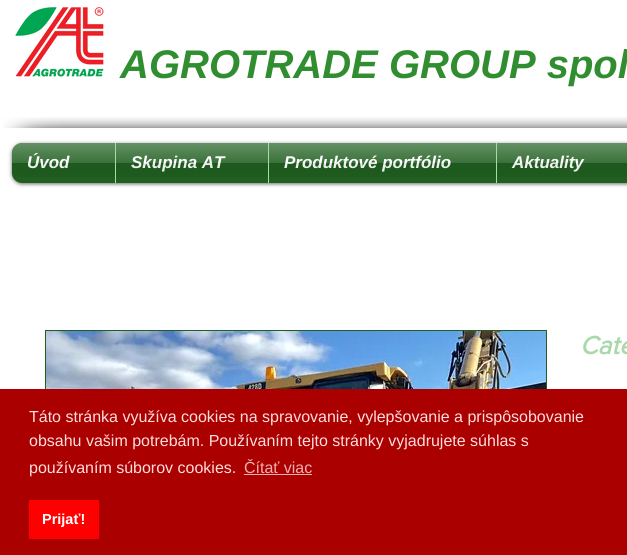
import math
import cairo

surface = cairo.ImageSurface(cairo.Format.RGB24, 627, 555)
ctx = cairo.Context(surface)
options = cairo.FontOptions()
options.set_hint_metrics(cairo.HintMetrics.OFF)
options.set_hint_style(cairo.HintStyle.NONE)
ctx.set_font_options(options)
ctx.set_miter_limit(4)


def ink(r, g, b):
    ctx.set_source_rgb(r / 255, g / 255, b / 255)


def write(x, y, s, family, size, color, bold=False, italic=False):
    ctx.select_font_face(family, cairo.FontSlant.ITALIC if italic else cairo.FontSlant.NORMAL, cairo.FontWeight.BOLD if bold else cairo.FontWeight.NORMAL)
    ctx.set_font_size(size)
    ink(*color)
    ctx.move_to(x, y)
    ctx.show_text(s)


def block(x, y, w, h, *color):
    ink(*color)
    ctx.rectangle(x, y, w, h)
    ctx.fill()


def round_path(x, y, w, h, r):
    ctx.new_sub_path()
    for i, (u, v) in enumerate([(x + w - r, y + h - r), (x + r, y + h - r), (x + r, y + r), (x + w - r, y + r)]):
        ctx.arc(u, v, r, i * math.pi / 2, (i + 1) * math.pi / 2)
    ctx.close_path()


def blur_box(x, y, w, h, r, blur, alpha):
    ctx.push_group_with_content(cairo.Content.ALPHA)
    ctx.set_operator(cairo.Operator.SOURCE)
    for i in range(15, -16, -2):
        e = blur * i / 6
        if min(w, h) + 2 * e > 0:
            ctx.set_source_rgba(0, 0, 0, alpha * math.erfc((i - 1) / 8.5) / 2)
            round_path(x - e, y - e, w + 2 * e, h + 2 * e, max(0, min(r + e + blur * .6, min(w, h) / 2 + e)))
            ctx.fill()
    ctx.mask(ctx.pop_group())


def paste(path, x, y, w, h):
    ctx.save()
    ctx.set_source_surface(cairo.ImageSurface.create_from_png(path), x, y)
    ctx.rectangle(x, y, w, h)
    ctx.fill()
    ctx.restore()


s1 = dict(family="Liberation Sans", size=40, color=(48, 142, 48), bold=True, italic=True)
s2 = dict(family="Liberation Sans", size=17, color=(255, 255, 255), bold=True, italic=True)
s3 = dict(family="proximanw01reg", size=26, color=(169, 217, 169), bold=True, italic=True)
s4 = dict(family="Liberation Sans", size=16, color=(255, 221, 221))
s5 = dict(family="Liberation Sans", size=16, color=(238, 177, 177))
s6 = dict(family="Liberation Sans", size=14.5, color=(255, 255, 255), bold=True)

ink(255, 255, 255)
ctx.paint()
paste("pic1.png", 15, 7, 89, 70)
write(120, 78, "AGROTRADE GROUP spol", **s1)
paste("pic2.png", 3, 117, 97, 11)
paste("pic3.png", 100, 117, 527, 11)
ink(0, 0, 0)
blur_box(12, 144, 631, 40, 10, 2, 0.6)
paste("pic4.png", 12, 143, 10, 32)
ink(32, 95, 32)
ctx.new_path()
ctx.move_to(22, 143)
ctx.line_to(115, 143)
ctx.line_to(115, 183)
ctx.line_to(22, 183)
ctx.curve_to(16.5, 183, 12, 178.5, 12, 173)
ctx.line_to(12, 153)
ctx.curve_to(12, 147.5, 16.5, 143, 22, 143)
ctx.close_path()
ctx.fill()
write(27, 168, "Úvod", **s2)
paste("pic5.png", 12, 143, 103, 34)
block(116, 143, 152, 40, 32, 95, 32)
block(115, 143, 1, 40, 169, 217, 169)
write(131, 168, "Skupina AT", **s2)
paste("pic6.png", 116, 143, 152, 34)
block(269, 143, 227, 40, 32, 95, 32)
block(268, 143, 1, 40, 169, 217, 169)
write(284, 168, "Produktové portfólio", **s2)
paste("pic7.png", 269, 143, 227, 34)
block(497, 143, 130, 40, 32, 95, 32)
block(496, 143, 1, 40, 169, 217, 169)
write(512, 168, "Aktuality", **s2)
paste("pic8.png", 497, 143, 130, 34)
ctx.set_source_rgba(1, 1, 1, 0.6)
ctx.rectangle(20, 187, 607, 1)
ctx.fill()
ctx.rectangle(45.5, 330.5, 501, 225)
ink(32, 95, 32)
ctx.set_line_width(1)
ctx.stroke()
paste("pic9.png", 46, 331, 500, 58)
write(580, 354, "Cate", **s3)
block(0, 389, 627, 166, 170, 0, 0)
write(29, 422, "Táto stránka využíva cookies na spravovanie, vylepšovanie a prispôsobovanie", **s4)
write(29, 446, "obsahu vašim potrebám. Používaním tejto stránky vyjadrujete súhlas s", **s4)
write(29, 473, "používaním súborov cookies.", **s4)
write(244, 473, "Čítať viac", **s5)
block(244, 474, 68, 1, 238, 177, 177)
block(29, 500, 70, 39, 255, 0, 0)
write(42, 524, "Prijať!", **s6)
surface.write_to_png("screenshot.png")
